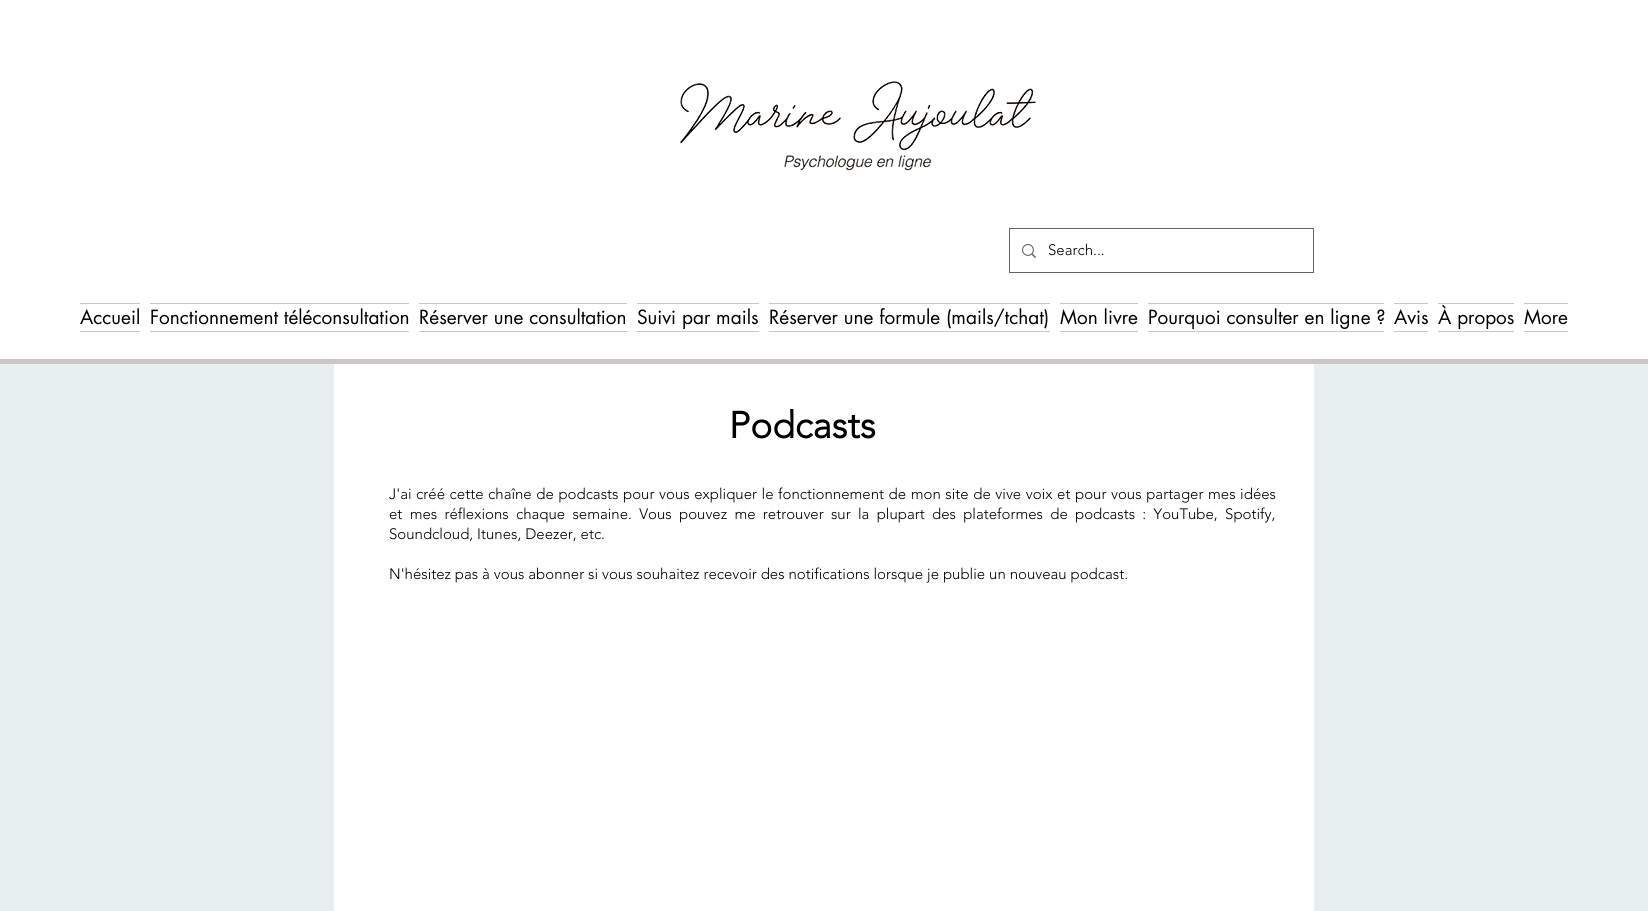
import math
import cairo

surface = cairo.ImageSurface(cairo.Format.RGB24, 1648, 911)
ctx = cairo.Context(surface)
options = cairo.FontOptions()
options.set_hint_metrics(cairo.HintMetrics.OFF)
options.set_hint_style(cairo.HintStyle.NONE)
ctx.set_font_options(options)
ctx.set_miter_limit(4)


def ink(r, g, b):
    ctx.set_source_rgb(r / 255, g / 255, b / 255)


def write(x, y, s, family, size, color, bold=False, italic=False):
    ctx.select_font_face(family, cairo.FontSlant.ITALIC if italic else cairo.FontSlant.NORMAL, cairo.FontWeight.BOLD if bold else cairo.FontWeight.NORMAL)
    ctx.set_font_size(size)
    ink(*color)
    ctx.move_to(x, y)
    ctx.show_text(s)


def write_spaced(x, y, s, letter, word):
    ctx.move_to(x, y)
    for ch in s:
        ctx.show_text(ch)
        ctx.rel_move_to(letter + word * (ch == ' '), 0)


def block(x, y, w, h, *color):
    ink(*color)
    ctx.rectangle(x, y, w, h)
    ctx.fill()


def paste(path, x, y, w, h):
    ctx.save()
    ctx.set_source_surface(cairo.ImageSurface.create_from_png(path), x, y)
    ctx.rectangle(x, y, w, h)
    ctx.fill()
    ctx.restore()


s1 = dict(family="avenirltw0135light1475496 Light", size=15, color=(0, 0, 0))
s2 = dict(family="futura", size=19, color=(0, 0, 0))
s3 = dict(family="avenirltw0135light1475496", size=37, color=(0, 0, 0), bold=True)

ink(232, 239, 241)
ctx.paint()
block(0, 0, 1648, 359, 255, 255, 255)
block(0, 359, 1648, 5, 204, 198, 198)
paste("pic1.png", 680, 81, 356, 90)
ctx.rectangle(1009.5, 228.5, 304, 44)
ink(102, 102, 102)
ctx.set_line_width(1)
ctx.stroke()
paste("pic2.png", 1022, 244, 14, 14)
write(1048, 255, "Search...", **s1)
block(80, 303, 60, 1, 204, 198, 198)
block(80, 331, 60, 1, 204, 198, 198)
write(80, 324, "Accueil", **s2)
block(150, 303, 259, 1, 204, 198, 198)
block(150, 331, 259, 1, 204, 198, 198)
write(150, 324, "Fonctionnement téléconsultation", **s2)
block(419, 303, 208, 1, 204, 198, 198)
block(419, 331, 208, 1, 204, 198, 198)
write(419, 324, "Réserver une consultation", **s2)
block(637, 303, 122, 1, 204, 198, 198)
block(637, 331, 122, 1, 204, 198, 198)
write(637, 324, "Suivi par mails", **s2)
block(769, 303, 281, 1, 204, 198, 198)
block(769, 331, 281, 1, 204, 198, 198)
write(769, 324, "Réserver une formule (mails/tchat)", **s2)
block(1060, 303, 78, 1, 204, 198, 198)
block(1060, 331, 78, 1, 204, 198, 198)
write(1060, 324, "Mon livre", **s2)
block(1148, 303, 236, 1, 204, 198, 198)
block(1148, 331, 236, 1, 204, 198, 198)
write(1148, 324, "Pourquoi consulter en ligne ?", **s2)
block(1394, 303, 34, 1, 204, 198, 198)
block(1394, 331, 34, 1, 204, 198, 198)
write(1394, 324, "Avis", **s2)
block(1438, 303, 76, 1, 204, 198, 198)
block(1438, 331, 76, 1, 204, 198, 198)
write(1438, 324, "À propos", **s2)
block(1524, 303, 44, 1, 204, 198, 198)
block(1524, 331, 44, 1, 204, 198, 198)
write(1524, 324, "More", **s2)
block(334, 364, 980, 547, 255, 255, 255)
write(729, 438, "Podcasts", **s3)
ctx.select_font_face("avenirltw0135light1475496 Light")
ctx.set_font_size(15)
write_spaced(389, 499, "J'ai créé cette chaîne de podcasts pour vous expliquer le fonctionnement de mon site de vive voix et pour vous partager mes idées", 0, 0.7)
write_spaced(389, 519, "et mes réflexions chaque semaine. Vous pouvez me retrouver sur la plupart des plateformes de podcasts : YouTube, Spotify,", 0, 3.4)
write(389, 539, "Soundcloud, Itunes, Deezer, etc.", **s1)
write(389, 579, "N'hésitez pas à vous abonner si vous souhaitez recevoir des notifications lorsque je publie un nouveau podcast.", **s1)
surface.write_to_png("screenshot.png")
